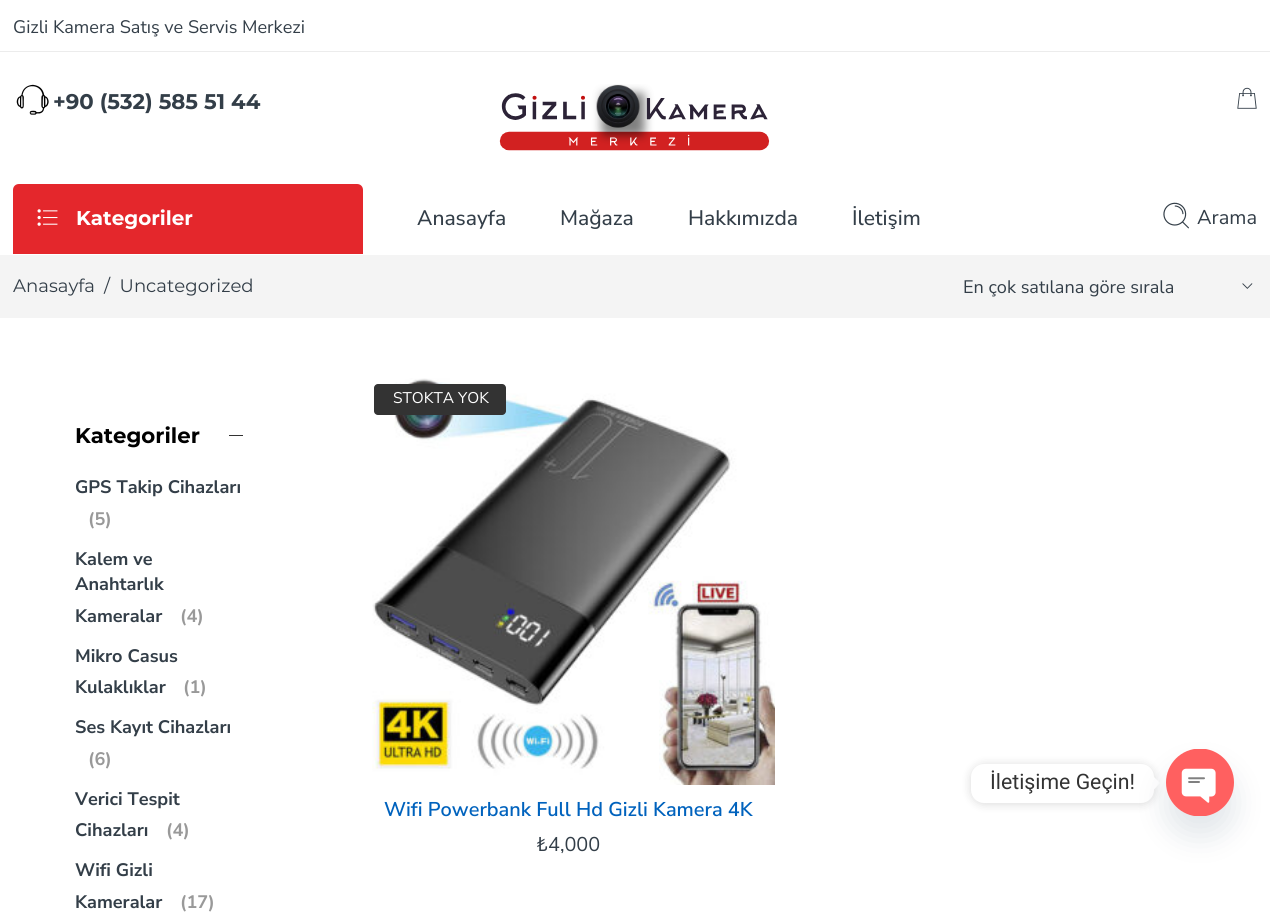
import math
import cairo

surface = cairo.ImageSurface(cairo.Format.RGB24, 1270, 922)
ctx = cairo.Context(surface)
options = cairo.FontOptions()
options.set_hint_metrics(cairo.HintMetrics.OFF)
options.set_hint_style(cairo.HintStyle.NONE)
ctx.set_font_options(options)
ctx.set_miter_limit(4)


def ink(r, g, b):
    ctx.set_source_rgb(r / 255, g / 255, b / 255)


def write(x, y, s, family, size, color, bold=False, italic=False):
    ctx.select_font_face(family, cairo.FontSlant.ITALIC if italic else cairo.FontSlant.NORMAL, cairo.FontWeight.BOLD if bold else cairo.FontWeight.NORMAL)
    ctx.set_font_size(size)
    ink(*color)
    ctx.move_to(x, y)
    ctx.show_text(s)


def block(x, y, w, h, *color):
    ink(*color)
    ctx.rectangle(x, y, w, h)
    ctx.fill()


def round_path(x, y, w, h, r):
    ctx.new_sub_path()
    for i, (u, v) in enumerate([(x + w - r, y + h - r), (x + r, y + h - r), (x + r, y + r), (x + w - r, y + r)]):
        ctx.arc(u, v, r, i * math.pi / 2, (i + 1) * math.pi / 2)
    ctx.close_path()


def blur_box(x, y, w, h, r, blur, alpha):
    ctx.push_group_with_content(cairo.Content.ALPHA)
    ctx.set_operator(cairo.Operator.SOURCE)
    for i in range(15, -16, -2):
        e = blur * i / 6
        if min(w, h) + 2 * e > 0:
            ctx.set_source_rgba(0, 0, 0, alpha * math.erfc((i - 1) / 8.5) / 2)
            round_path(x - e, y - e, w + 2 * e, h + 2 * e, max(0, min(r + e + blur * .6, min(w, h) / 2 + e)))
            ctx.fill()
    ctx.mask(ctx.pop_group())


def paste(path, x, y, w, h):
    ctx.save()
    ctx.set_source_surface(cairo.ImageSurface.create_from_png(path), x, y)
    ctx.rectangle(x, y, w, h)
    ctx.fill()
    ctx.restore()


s1 = dict(family="Nunito Sans", size=18.1, color=(51, 62, 72))
s2 = dict(family="Montserrat", size=21.25, color=(51, 62, 72), bold=True)
s3 = dict(family="Montserrat", size=19.9, color=(255, 255, 255), bold=True)
s4 = dict(family="Nunito Sans Medium", size=21, color=(51, 62, 72))
s5 = dict(family="Nunito Sans", size=20, color=(51, 62, 72))
s6 = dict(family="Montserrat", size=18.1, color=(51, 62, 72))
s7 = dict(family="Montserrat", size=21.25, color=(0, 0, 0), bold=True)
s8 = dict(family="Nunito Sans", size=18.1, color=(51, 62, 72), bold=True)
s9 = dict(family="Nunito Sans", size=18.1, color=(153, 153, 153), bold=True)
s10 = dict(family="Nunito Sans", size=15.5, color=(255, 255, 255))
s11 = dict(family="Nunito Sans SemiBold", size=19.9, color=(0, 98, 189))
s12 = dict(family="Nunito Sans", size=19.9, color=(51, 62, 72))
s13 = dict(family="Roboto", size=21.25, color=(51, 51, 51))

ink(255, 255, 255)
ctx.paint()
block(0, 51, 1270, 1, 236, 236, 236)
write(13, 33, "Gizli Kamera Satış ve Servis Merkezi", **s1)
paste("pic1.png", 16, 84, 33, 31)
write(53, 109, "+90 (532) 585 51 44", **s2)
paste("pic2.png", 499, 84, 271, 67)
paste("pic3.png", 1237, 87, 20, 22)
ink(228, 39, 44)
ctx.new_path()
ctx.move_to(19, 184)
ctx.line_to(357, 184)
ctx.curve_to(360.5, 184, 363, 186.5, 363, 190)
ctx.line_to(363, 254)
ctx.line_to(13, 254)
ctx.line_to(13, 190)
ctx.curve_to(13, 186.5, 15.5, 184, 19, 184)
ctx.close_path()
ctx.fill()
paste("pic4.png", 37, 209, 21, 17)
write(76, 225, "Kategoriler", **s3)
write(417, 225, "Anasayfa", **s4)
write(560, 225, "Mağaza", **s4)
write(688, 225, "Hakkımızda", **s4)
write(852, 225, "İletişim", **s4)
paste("pic5.png", 1163, 202, 26, 27)
write(1197, 224, "Arama", **s5)
block(0, 255, 1270, 63, 244, 244, 244)
write(13, 292, "Anasayfa", **s6)
write(104, 292, "/  Uncategorized", **s6)
write(963, 293, "En çok satılana göre sırala", **s1)
paste("pic6.png", 1242, 283, 11, 6)
write(75, 443, "Kategoriler", **s7)
block(229, 435, 14, 1, 51, 51, 51)
write(75, 493, "GPS Takip Cihazları", **s8)
write(88, 525, "(5)", **s9)
write(75, 565, "Kalem ve", **s8)
write(75, 590, "Anahtarlık", **s8)
write(75, 622, "Kameralar", **s8)
write(180, 622, "(4)", **s9)
write(75, 662, "Mikro Casus", **s8)
write(75, 693, "Kulaklıklar", **s8)
write(183, 693, "(1)", **s9)
write(75, 733, "Ses Kayıt Cihazları", **s8)
write(88, 765, "(6)", **s9)
write(75, 805, "Verici Tespit", **s8)
write(75, 836, "Cihazları", **s8)
write(166, 836, "(4)", **s9)
write(75, 876, "Wifi Gizli", **s8)
write(75, 908, "Kameralar", **s8)
write(180, 908, "(17)", **s9)
paste("pic7.png", 372, 378, 403, 407)
ink(51, 51, 51)
round_path(374, 384, 132, 31, 4)
ctx.fill()
write(393, 403, "STOKTA YOK", **s10)
write(384, 816, "Wifi Powerbank Full Hd Gizli Kamera 4K", **s11)
write(536, 851, "₺4,000", **s12)
ink(0, 0, 0)
blur_box(971, 765, 183, 39, 13, 5, 0.15)
ink(255, 255, 255)
round_path(971, 764, 183, 39, 13)
ctx.fill()
write(990, 789, "İletişime Geçin!", **s13)
ink(255, 255, 255)
ctx.new_path()
ctx.move_to(1154, 789.5)
ctx.line_to(1154, 777)
ctx.line_to(1160, 783)
ctx.close_path()
ctx.fill()
ink(73, 104, 126)
blur_box(1166, 769, 68, 67, 33.5, 15, 0.16)
paste("pic8.png", 1166, 749, 68, 67)
surface.write_to_png("screenshot.png")
